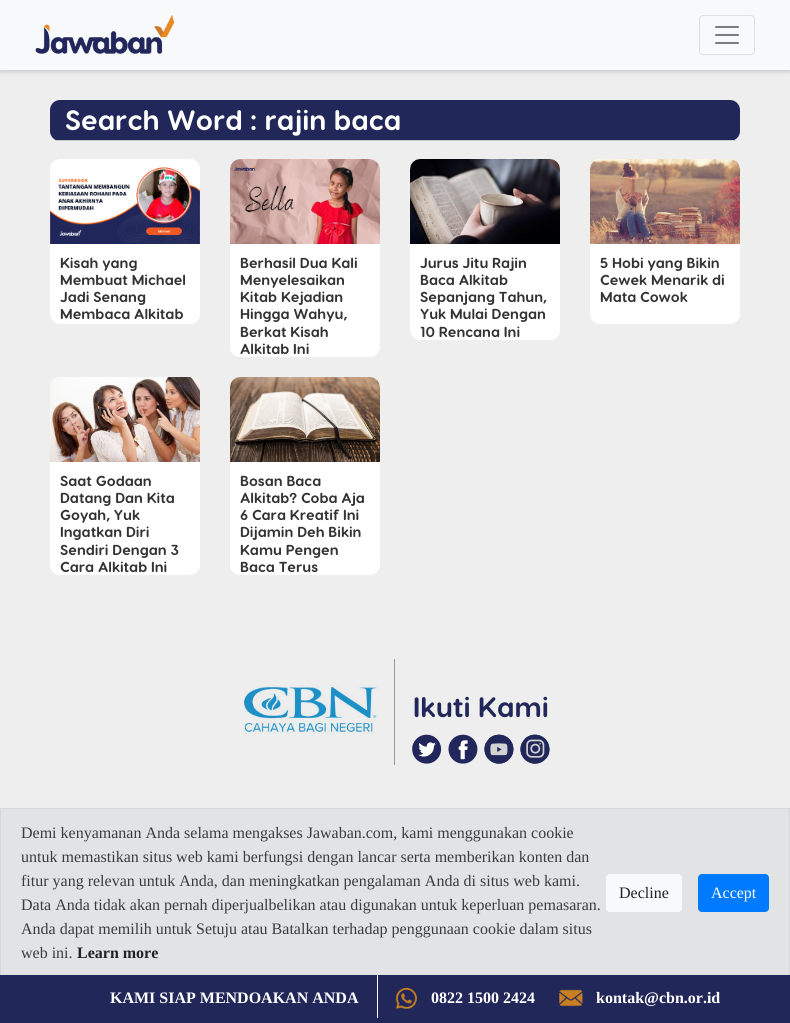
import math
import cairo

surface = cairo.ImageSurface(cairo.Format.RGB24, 790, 1023)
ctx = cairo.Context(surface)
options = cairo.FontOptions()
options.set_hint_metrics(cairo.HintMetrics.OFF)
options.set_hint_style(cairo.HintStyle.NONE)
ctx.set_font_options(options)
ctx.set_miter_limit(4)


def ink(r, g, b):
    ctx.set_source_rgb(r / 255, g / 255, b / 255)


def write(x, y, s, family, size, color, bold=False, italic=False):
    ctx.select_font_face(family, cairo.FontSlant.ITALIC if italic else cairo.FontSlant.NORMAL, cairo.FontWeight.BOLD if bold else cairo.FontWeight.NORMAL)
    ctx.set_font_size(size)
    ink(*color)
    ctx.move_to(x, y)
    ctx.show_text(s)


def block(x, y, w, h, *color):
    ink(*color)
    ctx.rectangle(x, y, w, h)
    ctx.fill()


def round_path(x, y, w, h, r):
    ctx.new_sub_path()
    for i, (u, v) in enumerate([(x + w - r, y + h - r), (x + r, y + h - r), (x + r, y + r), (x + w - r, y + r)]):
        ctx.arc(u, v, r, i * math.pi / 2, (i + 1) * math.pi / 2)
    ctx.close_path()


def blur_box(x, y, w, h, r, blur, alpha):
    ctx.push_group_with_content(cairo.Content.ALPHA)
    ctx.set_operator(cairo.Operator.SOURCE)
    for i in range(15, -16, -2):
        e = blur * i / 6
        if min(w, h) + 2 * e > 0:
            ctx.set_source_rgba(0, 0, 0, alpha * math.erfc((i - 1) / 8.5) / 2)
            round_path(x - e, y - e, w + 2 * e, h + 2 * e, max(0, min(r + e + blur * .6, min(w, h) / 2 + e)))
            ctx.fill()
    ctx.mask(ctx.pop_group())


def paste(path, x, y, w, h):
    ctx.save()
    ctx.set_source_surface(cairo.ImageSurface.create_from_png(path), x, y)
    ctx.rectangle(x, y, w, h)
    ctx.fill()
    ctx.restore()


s1 = dict(family="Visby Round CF", size=28, color=(255, 255, 255), bold=True)
s2 = dict(family="Visby Round CF", size=14.5, color=(51, 51, 51), bold=True)
s3 = dict(family="Visby Round CF", size=28, color=(34, 39, 90), bold=True)
s4 = dict(family="Liberation Serif", size=16, color=(56, 61, 65))
s5 = dict(family="Liberation Serif", size=16, color=(32, 35, 38), bold=True)
s6 = dict(family="Liberation Serif", size=16, color=(32, 35, 38))
s7 = dict(family="Liberation Serif", size=16, color=(255, 255, 255))
s8 = dict(family="Liberation Serif", size=16, color=(255, 255, 255), bold=True)

ink(238, 238, 238)
ctx.paint()
ink(0, 0, 0)
blur_box(0, 2, 790, 70, 0, 2, 0.15)
block(0, 0, 790, 70, 248, 249, 250)
paste("pic1.png", 35, 15, 140, 39)
round_path(699.5, 15.5, 55, 39, 3.5)
ink(223, 224, 225)
ctx.set_line_width(1)
ctx.stroke()
paste("pic2.png", 715, 26, 24, 18)
ink(34, 39, 90)
round_path(50, 100, 690, 41, 10)
ctx.fill()
block(55, 140, 680, 1, 204, 204, 204)
write(65, 130, "Search Word : rajin baca", **s1)
round_path(50, 159, 150, 165, 10)
ctx.fill()
paste("pic3.png", 50, 167, 150, 77)
write(60, 268, "Kisah yang", **s2)
write(60, 285, "Membuat Michael", **s2)
write(60, 302, "Jadi Senang", **s2)
write(60, 319, "Membaca Alkitab", **s2)
ink(255, 255, 255)
round_path(230, 159, 150, 198, 10)
ctx.fill()
paste("pic4.png", 230, 159, 150, 85)
write(240, 268, "Berhasil Dua Kali", **s2)
write(240, 285, "Menyelesaikan", **s2)
write(240, 302, "Kitab Kejadian", **s2)
write(240, 319, "Hingga Wahyu,", **s2)
write(240, 337, "Berkat Kisah", **s2)
write(240, 354, "Alkitab Ini", **s2)
ink(255, 255, 255)
round_path(410, 159, 150, 181, 10)
ctx.fill()
paste("pic5.png", 410, 159, 150, 85)
write(420, 268, "Jurus Jitu Rajin", **s2)
write(420, 285, "Baca Alkitab", **s2)
write(420, 302, "Sepanjang Tahun,", **s2)
write(420, 319, "Yuk Mulai Dengan", **s2)
write(420, 337, "10 Rencana Ini", **s2)
ink(255, 255, 255)
round_path(590, 159, 150, 165, 10)
ctx.fill()
paste("pic6.png", 590, 159, 150, 85)
write(600, 268, "5 Hobi yang Bikin", **s2)
write(600, 285, "Cewek Menarik di", **s2)
write(600, 302, "Mata Cowok", **s2)
ink(255, 255, 255)
round_path(50, 377, 150, 198, 10)
ctx.fill()
paste("pic7.png", 50, 377, 150, 85)
write(60, 486, "Saat Godaan", **s2)
write(60, 503, "Datang Dan Kita", **s2)
write(60, 520, "Goyah, Yuk", **s2)
write(60, 537, "Ingatkan Diri", **s2)
write(60, 555, "Sendiri Dengan 3", **s2)
write(60, 572, "Cara Alkitab Ini", **s2)
ink(255, 255, 255)
round_path(230, 377, 150, 198, 10)
ctx.fill()
paste("pic8.png", 230, 377, 150, 85)
write(240, 486, "Bosan Baca", **s2)
write(240, 503, "Alkitab? Coba Aja", **s2)
write(240, 520, "6 Cara Kreatif Ini", **s2)
write(240, 537, "Dijamin Deh Bikin", **s2)
write(240, 555, "Kamu Pengen", **s2)
write(240, 572, "Baca Terus", **s2)
block(394, 659, 1, 106, 153, 153, 153)
paste("pic9.png", 243, 685, 136, 49)
write(413, 717, "Ikuti Kami", **s3)
paste("pic10.png", 412, 734, 30, 30)
paste("pic11.png", 448, 734, 30, 30)
paste("pic12.png", 484, 734, 30, 30)
paste("pic13.png", 520, 734, 30, 30)
block(1, 809, 788, 166, 226, 227, 229)
ctx.rectangle(0.5, 808.5, 789, 169)
ink(214, 216, 219)
ctx.stroke()
write(21, 838, "Demi kenyamanan Anda selama mengakses Jawaban.com, kami menggunakan cookie", **s4)
write(21, 862, "untuk memastikan situs web kami berfungsi dengan lancar serta memberikan konten dan", **s4)
write(21, 886, "fitur yang relevan untuk Anda, dan meningkatkan pengalaman Anda di situs web kami.", **s4)
write(21, 910, "Data Anda tidak akan pernah diperjualbelikan atau digunakan untuk keperluan pemasaran.", **s4)
write(21, 934, "Anda dapat memilih untuk Setuju atau Batalkan terhadap penggunaan cookie dalam situs", **s4)
write(21, 958, "web ini.", **s4)
write(77, 958, "Learn more", **s5)
ink(248, 249, 250)
round_path(606.5, 874.5, 75, 37, 3.5)
ctx.fill_preserve()
ctx.stroke()
write(619, 898, "Decline", **s6)
ink(0, 123, 255)
round_path(698.5, 874.5, 70, 37, 3.5)
ctx.fill_preserve()
ctx.stroke()
write(711, 898, "Accept", **s7)
block(0, 975, 790, 48, 34, 39, 90)
block(377, 975, 1, 43, 255, 255, 255)
write(110, 1003, "KAMI SIAP MENDOAKAN ANDA", **s8)
paste("pic14.png", 395, 987, 22, 23)
write(431, 1003, "0822 1500 2424", **s8)
paste("pic15.png", 559, 989, 24, 18)
write(596, 1003, "kontak@cbn.or.id", **s8)
surface.write_to_png("screenshot.png")
